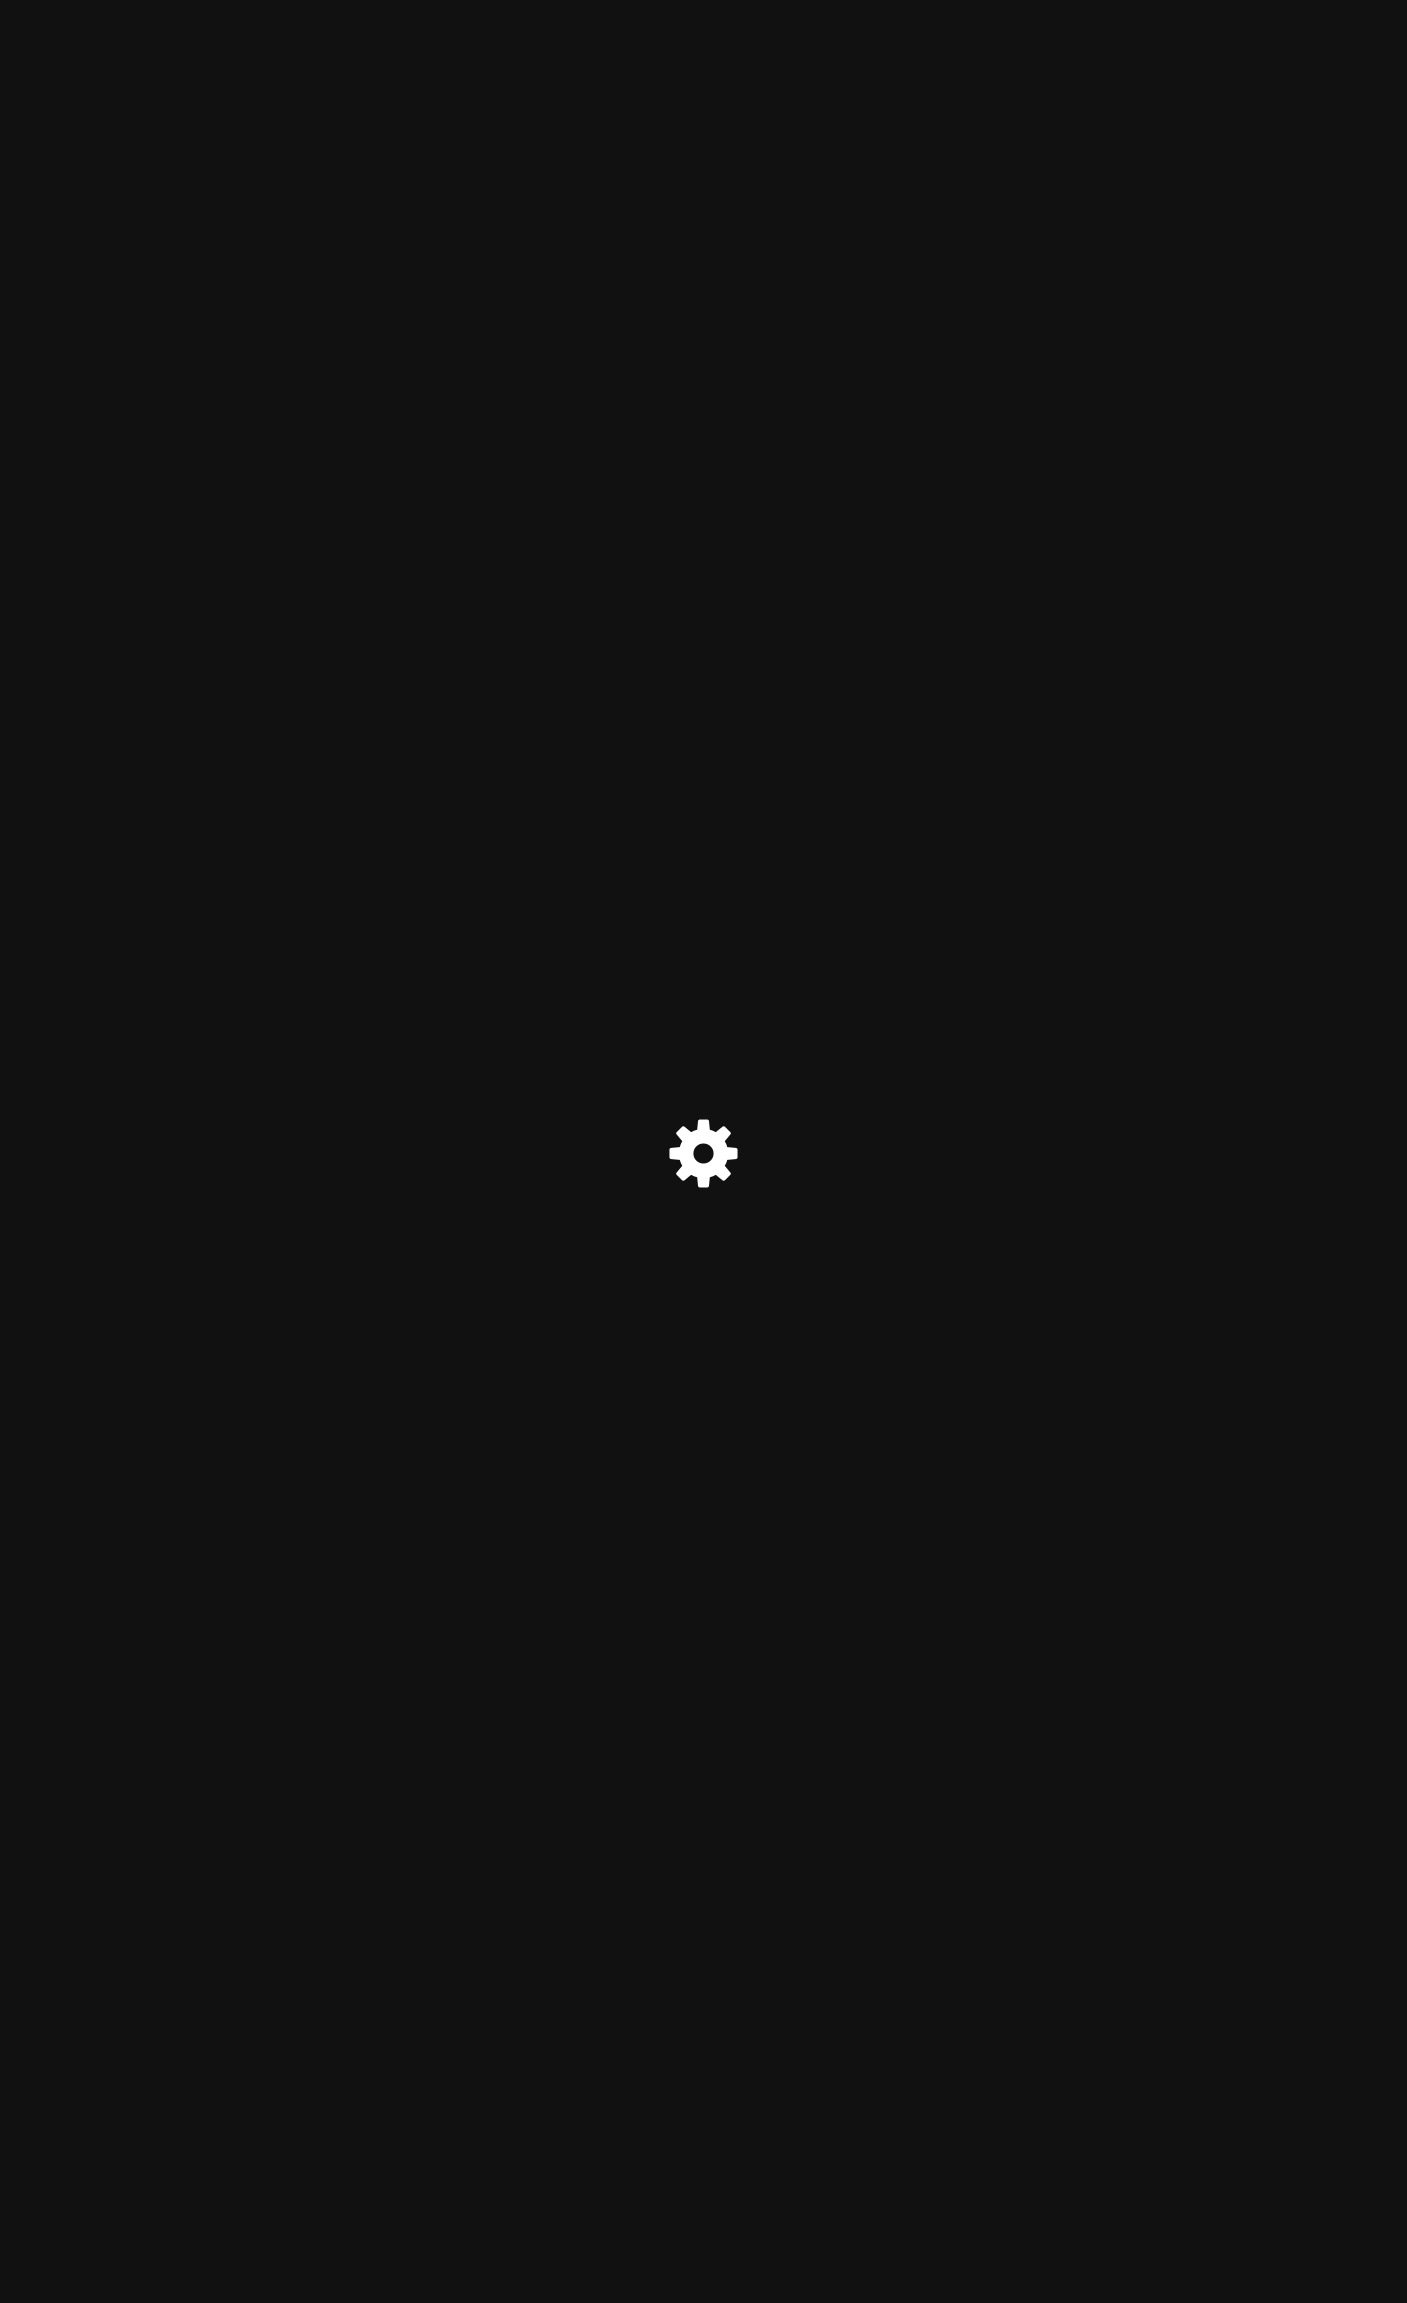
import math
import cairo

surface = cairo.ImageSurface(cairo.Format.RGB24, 1407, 2303)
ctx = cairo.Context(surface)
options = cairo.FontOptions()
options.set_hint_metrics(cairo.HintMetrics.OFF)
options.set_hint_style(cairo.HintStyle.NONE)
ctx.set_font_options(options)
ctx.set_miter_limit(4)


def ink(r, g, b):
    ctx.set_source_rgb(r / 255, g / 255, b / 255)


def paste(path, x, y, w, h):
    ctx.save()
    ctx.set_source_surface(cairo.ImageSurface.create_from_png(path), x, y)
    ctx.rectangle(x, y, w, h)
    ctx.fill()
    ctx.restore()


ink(17, 17, 17)
ctx.paint()
paste("pic1.png", 669, 1119, 69, 69)
surface.write_to_png("screenshot.png")
